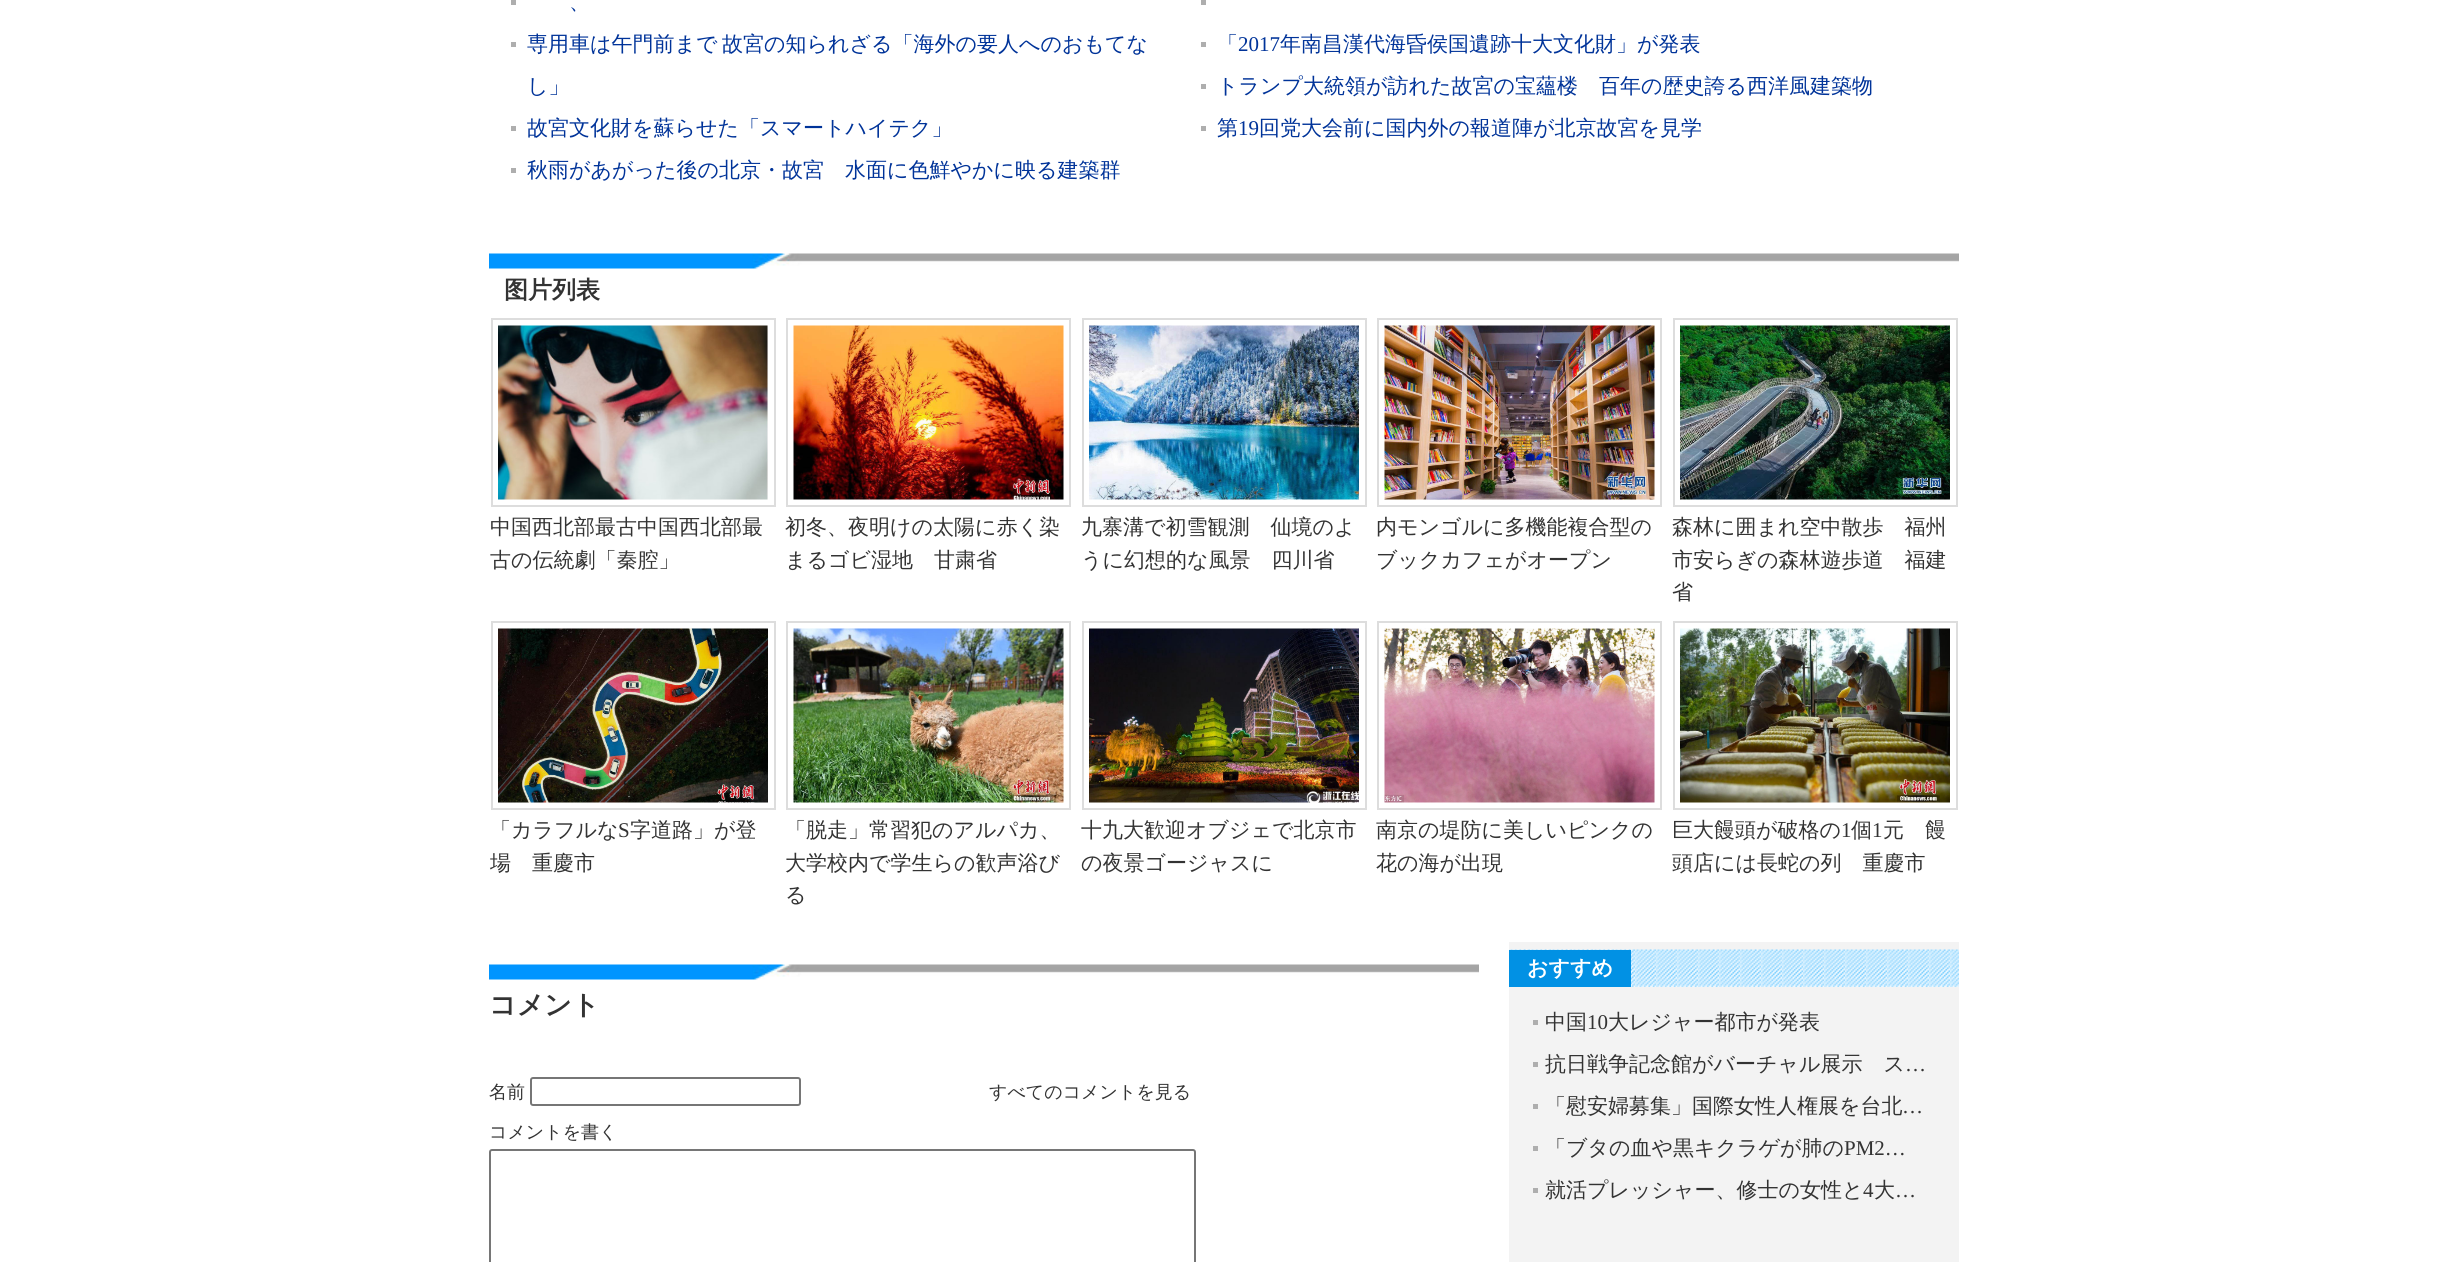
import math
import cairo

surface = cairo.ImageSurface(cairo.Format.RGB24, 2447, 1262)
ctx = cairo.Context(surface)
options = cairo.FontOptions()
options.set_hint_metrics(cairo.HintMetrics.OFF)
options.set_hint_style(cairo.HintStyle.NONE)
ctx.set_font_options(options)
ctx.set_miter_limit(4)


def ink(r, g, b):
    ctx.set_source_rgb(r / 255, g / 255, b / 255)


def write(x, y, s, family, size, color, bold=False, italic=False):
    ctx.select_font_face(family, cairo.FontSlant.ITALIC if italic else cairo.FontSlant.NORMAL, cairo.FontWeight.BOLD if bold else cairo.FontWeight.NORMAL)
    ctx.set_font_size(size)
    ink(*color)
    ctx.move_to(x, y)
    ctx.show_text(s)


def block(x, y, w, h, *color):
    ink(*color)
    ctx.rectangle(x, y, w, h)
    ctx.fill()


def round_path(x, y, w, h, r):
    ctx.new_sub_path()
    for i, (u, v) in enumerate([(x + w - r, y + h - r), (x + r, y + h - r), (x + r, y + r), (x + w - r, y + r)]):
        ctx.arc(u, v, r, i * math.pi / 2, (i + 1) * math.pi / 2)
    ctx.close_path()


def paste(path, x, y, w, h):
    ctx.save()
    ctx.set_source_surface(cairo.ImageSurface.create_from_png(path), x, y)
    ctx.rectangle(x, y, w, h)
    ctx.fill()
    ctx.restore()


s1 = dict(family="WenQuanYi Zen Hei Medium", size=21, color=(0, 51, 153))
s2 = dict(family="Liberation Serif", size=21, color=(0, 51, 153))
s3 = dict(family="WenQuanYi Zen Hei", size=24, color=(51, 51, 51), bold=True)
s4 = dict(family="WenQuanYi Zen Hei Medium", size=21, color=(51, 51, 51))
s5 = dict(family="Liberation Serif", size=21, color=(51, 51, 51))
s6 = dict(family="WenQuanYi Zen Hei", size=27, color=(51, 51, 51), bold=True)
s7 = dict(family="WenQuanYi Zen Hei Medium", size=18, color=(51, 51, 51))
s8 = dict(family="WenQuanYi Zen Hei", size=21, color=(255, 255, 255), bold=True)

ink(255, 255, 255)
ctx.paint()
block(1201, 0, 5, 5, 174, 174, 174)
block(511, 0, 5, 5, 174, 174, 174)
write(569, 9, "、", **s1)
block(511, 42, 5, 5, 174, 174, 174)
write(527, 51, "専用車は午門前まで", **s1)
write(722, 51, "故宮の知られざる「海外の要人へのおもてな", **s1)
write(527, 93, "し」", **s1)
block(1201, 42, 5, 5, 174, 174, 174)
write(1217, 51, "「", **s1)
write(1238, 51, "2017", **s2)
write(1280, 51, "年南昌漢代海昏侯国遺跡十大文化財」が発表", **s1)
block(1201, 84, 5, 5, 174, 174, 174)
write(1217, 93, "トランプ大統領が訪れた故宮の宝蘊楼　百年の歴史誇る西洋風建築物", **s1)
block(511, 126, 5, 5, 174, 174, 174)
write(527, 135, "故宮文化財を蘇らせた「スマートハイテク」", **s1)
block(1201, 126, 5, 5, 174, 174, 174)
write(1217, 135, "第", **s1)
write(1238, 135, "19", **s2)
write(1259, 135, "回党大会前に国内外の報道陣が北京故宮を見学", **s1)
block(511, 168, 5, 5, 174, 174, 174)
write(527, 177, "秋雨があがった後の北京・故宮　水面に色鮮やかに映る建築群", **s1)
paste("pic1.png", 489, 253, 1470, 16)
write(504, 298, "图片列表", **s3)
ctx.rectangle(492, 319, 283, 187)
ink(221, 221, 221)
ctx.stroke()
paste("pic2.png", 498, 325, 270, 175)
write(490, 534, "中国西北部最古中国西北部最", **s4)
write(490, 567, "古の伝統劇「秦腔」", **s4)
ctx.rectangle(787, 319, 283, 187)
ink(221, 221, 221)
ctx.stroke()
paste("pic3.png", 793, 325, 271, 175)
write(785, 534, "初冬、夜明けの太陽に赤く染", **s4)
write(785, 567, "まるゴビ湿地　甘粛省", **s4)
ctx.rectangle(1083, 319, 283, 187)
ink(221, 221, 221)
ctx.stroke()
paste("pic4.png", 1089, 325, 270, 175)
write(1081, 534, "九寨溝で初雪観測　仙境のよ", **s4)
write(1081, 567, "うに幻想的な風景　四川省", **s4)
ctx.rectangle(1378, 319, 283, 187)
ink(221, 221, 221)
ctx.stroke()
paste("pic5.png", 1384, 325, 271, 175)
write(1376, 534, "内モンゴルに多機能複合型の", **s4)
write(1376, 567, "ブックカフェがオープン", **s4)
ctx.rectangle(1674, 319, 283, 187)
ink(221, 221, 221)
ctx.stroke()
paste("pic6.png", 1680, 325, 270, 175)
write(1672, 534, "森林に囲まれ空中散歩　福州", **s4)
write(1672, 567, "市安らぎの森林遊歩道　福建", **s4)
write(1672, 599, "省", **s4)
ctx.rectangle(492, 622, 283, 187)
ink(221, 221, 221)
ctx.stroke()
paste("pic7.png", 498, 628, 270, 175)
write(490, 837, "「カラフルな", **s4)
write(618, 837, "S", **s5)
write(630, 837, "字道路」が登", **s4)
write(490, 870, "場　重慶市", **s4)
ctx.rectangle(787, 622, 283, 187)
ink(221, 221, 221)
ctx.stroke()
paste("pic8.png", 793, 628, 271, 175)
write(785, 837, "「脱走」常習犯のアルパカ、", **s4)
write(785, 870, "大学校内で学生らの歓声浴び", **s4)
write(785, 902, "る", **s4)
ctx.rectangle(1083, 622, 283, 187)
ink(221, 221, 221)
ctx.stroke()
paste("pic9.png", 1089, 628, 270, 175)
write(1081, 837, "十九大歓迎オブジェで北京市", **s4)
write(1081, 870, "の夜景ゴージャスに", **s4)
ctx.rectangle(1378, 622, 283, 187)
ink(221, 221, 221)
ctx.stroke()
paste("pic10.png", 1384, 628, 271, 175)
write(1376, 837, "南京の堤防に美しいピンクの", **s4)
write(1376, 870, "花の海が出現", **s4)
ctx.rectangle(1674, 622, 283, 187)
ink(221, 221, 221)
ctx.stroke()
paste("pic11.png", 1680, 628, 270, 175)
write(1672, 837, "巨大饅頭が破格の", **s4)
write(1841, 837, "1", **s5)
write(1851, 837, "個", **s4)
write(1872, 837, "1", **s5)
write(1883, 837, "元　饅", **s4)
write(1672, 870, "頭店には長蛇の列　重慶市", **s4)
block(1509, 942, 450, 320, 243, 243, 243)
paste("pic12.png", 489, 964, 990, 16)
write(489, 1014, "コメント", **s6)
write(489, 1098, "名前", **s7)
round_path(531, 1078, 269, 27, 2)
ink(118, 118, 118)
ctx.stroke()
write(989, 1098, "すべてのコメントを見る", **s7)
write(489, 1138, "コメントを書く", **s7)
round_path(490, 1150, 705, 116, 2)
ink(118, 118, 118)
ctx.stroke()
paste("pic13.png", 1509, 949, 450, 38)
block(1509, 950, 122, 37, 1, 145, 228)
write(1527, 975, "おすすめ", **s8)
block(1533, 1020, 5, 5, 174, 174, 174)
write(1545, 1029, "中国", **s4)
write(1587, 1029, "10", **s5)
write(1608, 1029, "大レジャー都市が発表", **s4)
block(1533, 1062, 5, 5, 174, 174, 174)
write(1545, 1071, "抗日戦争記念館がバーチャル展示　ス", **s4)
write(1905, 1071, "…", **s5)
block(1533, 1104, 5, 5, 174, 174, 174)
write(1545, 1113, "「慰安婦募集」国際女性人権展を台北", **s4)
write(1902, 1113, "…", **s5)
block(1533, 1146, 5, 5, 174, 174, 174)
write(1545, 1155, "「ブタの血や黒キクラゲが肺の", **s4)
write(1844, 1155, "PM2…", **s5)
block(1533, 1188, 5, 5, 174, 174, 174)
write(1545, 1197, "就活プレッシャー、修士の女性と", **s4)
write(1863, 1197, "4", **s5)
write(1874, 1197, "大", **s4)
write(1895, 1197, "…", **s5)
surface.write_to_png("screenshot.png")
